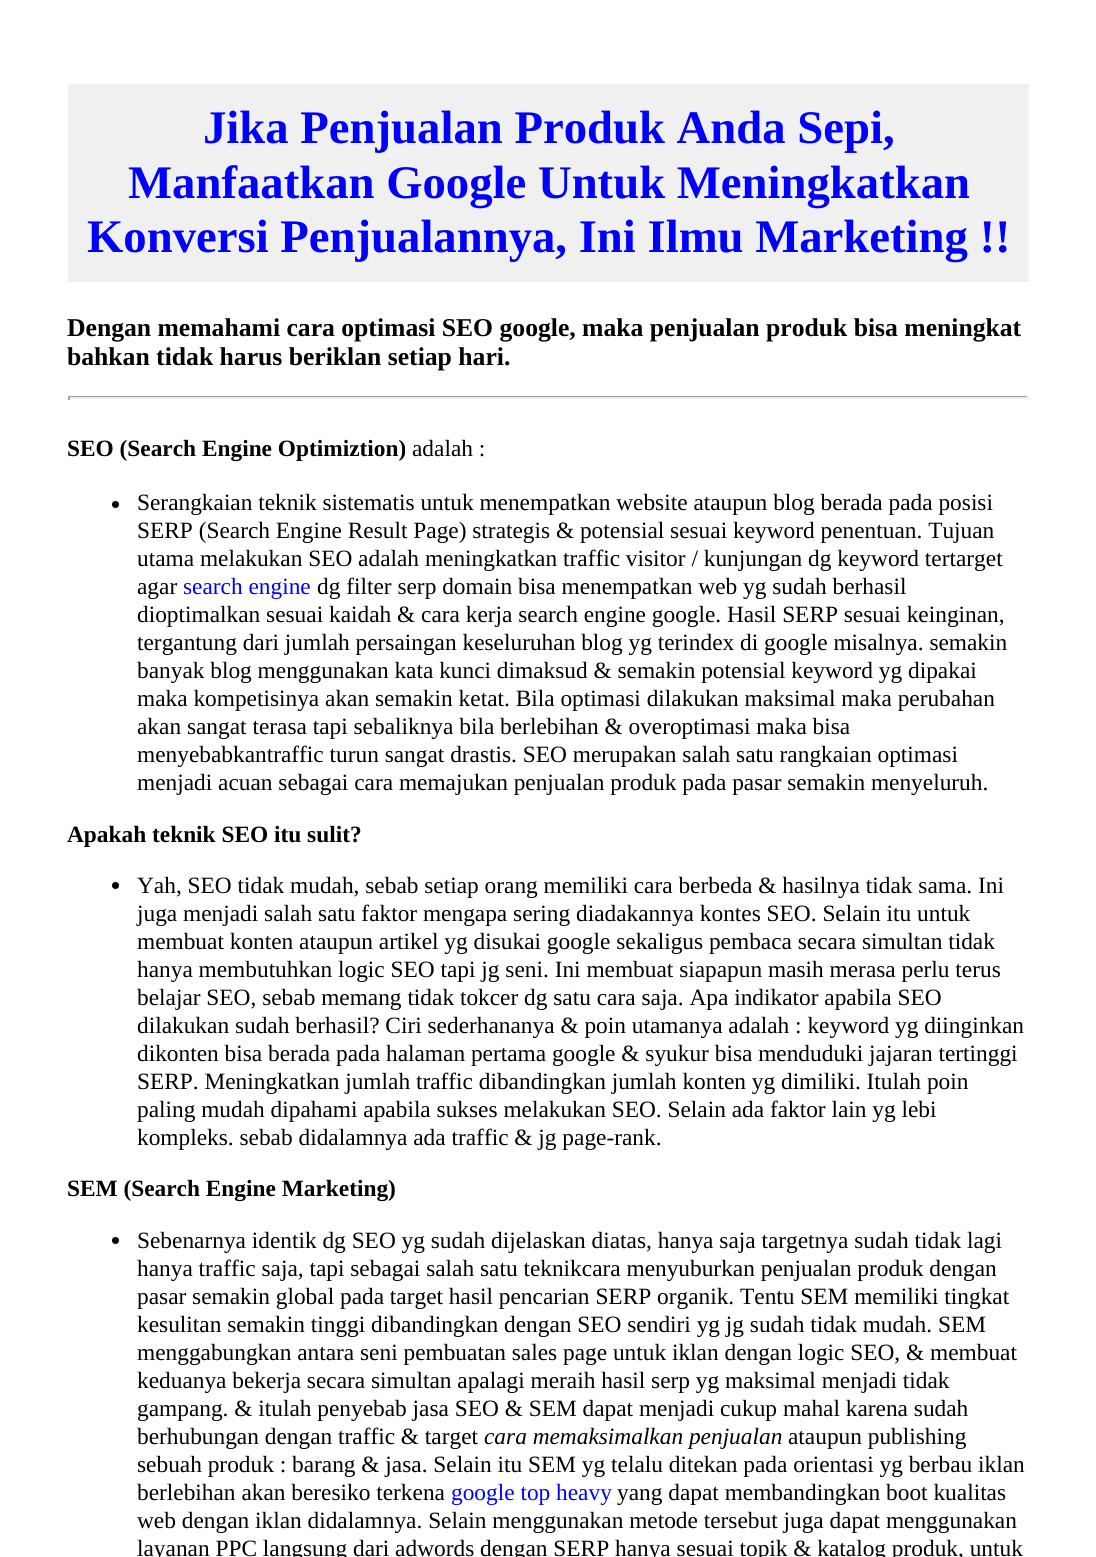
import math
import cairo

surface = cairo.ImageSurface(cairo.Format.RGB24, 1096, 1557)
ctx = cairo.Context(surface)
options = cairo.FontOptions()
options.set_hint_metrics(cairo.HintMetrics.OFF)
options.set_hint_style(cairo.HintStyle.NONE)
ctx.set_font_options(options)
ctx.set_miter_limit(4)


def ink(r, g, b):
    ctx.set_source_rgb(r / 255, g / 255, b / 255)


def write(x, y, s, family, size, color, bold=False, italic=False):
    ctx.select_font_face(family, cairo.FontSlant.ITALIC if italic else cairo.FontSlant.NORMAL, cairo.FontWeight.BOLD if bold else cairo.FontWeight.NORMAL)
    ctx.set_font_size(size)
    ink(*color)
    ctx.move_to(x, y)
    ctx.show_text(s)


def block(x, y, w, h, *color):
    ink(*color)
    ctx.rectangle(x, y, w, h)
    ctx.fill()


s1 = dict(family="Liberation Serif", size=46.7, color=(0, 0, 255), bold=True)
s2 = dict(family="Liberation Serif", size=25.65, color=(0, 0, 0), bold=True)
s3 = dict(family="Liberation Serif", size=23.35, color=(0, 0, 0), bold=True)
s4 = dict(family="Liberation Serif", size=23.35, color=(0, 0, 0))
s5 = dict(family="Liberation Serif", size=23.35, color=(0, 0, 255))
s6 = dict(family="Liberation Serif", size=23.35, color=(0, 0, 0), italic=True)

ink(255, 255, 255)
ctx.paint()
block(68, 84, 961, 198, 240, 240, 240)
write(203, 143, "Jika Penjualan Produk Anda Sepi,", **s1)
write(128, 198, "Manfaatkan Google Untuk Meningkatkan", **s1)
write(87, 252, "Konversi Penjualannya, Ini Ilmu Marketing !!", **s1)
write(67, 336, "Dengan memahami cara optimasi SEO google, maka penjualan produk bisa meningkat", **s2)
write(67, 365, "bahkan tidak harus beriklan setiap hari.", **s2)
block(68, 396, 961, 1, 159, 159, 159)
block(1027, 396, 2, 4, 238, 238, 238)
block(68, 397, 961, 2, 238, 238, 238)
block(68, 396, 2, 4, 159, 159, 159)
write(67, 456, "SEO (Search Engine Optimiztion)", **s3)
write(412, 456, "adalah :", **s4)
ctx.new_path()
ctx.arc(115.5, 504.5, 3.5, 0, 2 * math.pi)
ctx.fill()
write(137, 510, "Serangkaian teknik sistematis untuk menempatkan website ataupun blog berada pada posisi", **s4)
write(137, 538, "SERP (Search Engine Result Page) strategis & potensial sesuai keyword penentuan. Tujuan", **s4)
write(137, 566, "utama melakukan SEO adalah meningkatkan traffic visitor / kunjungan dg keyword tertarget", **s4)
write(137, 594, "agar", **s4)
write(183, 594, "search engine", **s5)
write(317, 594, "dg filter serp domain bisa menempatkan web yg sudah berhasil", **s4)
write(137, 622, "dioptimalkan sesuai kaidah & cara kerja search engine google. Hasil SERP sesuai keinginan,", **s4)
write(137, 650, "tergantung dari jumlah persaingan keseluruhan blog yg terindex di google misalnya. semakin", **s4)
write(137, 678, "banyak blog menggunakan kata kunci dimaksud & semakin potensial keyword yg dipakai", **s4)
write(137, 706, "maka kompetisinya akan semakin ketat. Bila optimasi dilakukan maksimal maka perubahan", **s4)
write(137, 734, "akan sangat terasa tapi sebaliknya bila berlebihan & overoptimasi maka bisa", **s4)
write(137, 762, "menyebabkantraffic turun sangat drastis. SEO merupakan salah satu rangkaian optimasi", **s4)
write(137, 790, "menjadi acuan sebagai cara memajukan penjualan produk pada pasar semakin menyeluruh.", **s4)
write(67, 842, "Apakah teknik SEO itu sulit?", **s3)
ctx.new_path()
ctx.arc(115.5, 885.5, 3.5, 0, 2 * math.pi)
ctx.fill()
write(137, 893, "Yah, SEO tidak mudah, sebab setiap orang memiliki cara berbeda & hasilnya tidak sama. Ini", **s4)
write(137, 921, "juga menjadi salah satu faktor mengapa sering diadakannya kontes SEO. Selain itu untuk", **s4)
write(137, 949, "membuat konten ataupun artikel yg disukai google sekaligus pembaca secara simultan tidak", **s4)
write(137, 977, "hanya membutuhkan logic SEO tapi jg seni. Ini membuat siapapun masih merasa perlu terus", **s4)
write(137, 1005, "belajar SEO, sebab memang tidak tokcer dg satu cara saja. Apa indikator apabila SEO", **s4)
write(137, 1033, "dilakukan sudah berhasil? Ciri sederhananya & poin utamanya adalah : keyword yg diinginkan", **s4)
write(137, 1061, "dikonten bisa berada pada halaman pertama google & syukur bisa menduduki jajaran tertinggi", **s4)
write(137, 1089, "SERP. Meningkatkan jumlah traffic dibandingkan jumlah konten yg dimiliki. Itulah poin", **s4)
write(137, 1117, "paling mudah dipahami apabila sukses melakukan SEO. Selain ada faktor lain yg lebi", **s4)
write(137, 1145, "kompleks. sebab didalamnya ada traffic & jg page-rank.", **s4)
write(67, 1196, "SEM (Search Engine Marketing)", **s3)
ctx.new_path()
ctx.arc(115.5, 1240.5, 3.5, 0, 2 * math.pi)
ctx.fill()
write(137, 1248, "Sebenarnya identik dg SEO yg sudah dijelaskan diatas, hanya saja targetnya sudah tidak lagi", **s4)
write(137, 1276, "hanya traffic saja, tapi sebagai salah satu teknikcara menyuburkan penjualan produk dengan", **s4)
write(137, 1304, "pasar semakin global pada target hasil pencarian SERP organik. Tentu SEM memiliki tingkat", **s4)
write(137, 1332, "kesulitan semakin tinggi dibandingkan dengan SEO sendiri yg jg sudah tidak mudah. SEM", **s4)
write(137, 1360, "menggabungkan antara seni pembuatan sales page untuk iklan dengan logic SEO, & membuat", **s4)
write(137, 1388, "keduanya bekerja secara simultan apalagi meraih hasil serp yg maksimal menjadi tidak", **s4)
write(137, 1416, "gampang. & itulah penyebab jasa SEO & SEM dapat menjadi cukup mahal karena sudah", **s4)
write(137, 1444, "berhubungan dengan traffic & target", **s4)
write(484, 1444, "cara memaksimalkan penjualan", **s6)
write(788, 1444, "ataupun publishing", **s4)
write(137, 1472, "sebuah produk : barang & jasa. Selain itu SEM yg telalu ditekan pada orientasi yg berbau iklan", **s4)
write(137, 1500, "berlebihan akan beresiko terkena", **s4)
write(451, 1500, "google top heavy", **s5)
write(617, 1500, "yang dapat membandingkan boot kualitas", **s4)
write(137, 1528, "web dengan iklan didalamnya. Selain menggunakan metode tersebut juga dapat menggunakan", **s4)
write(137, 1556, "layanan PPC langsung dari adwords dengan SERP hanya sesuai topik & katalog produk, untuk", **s4)
surface.write_to_png("screenshot.png")
